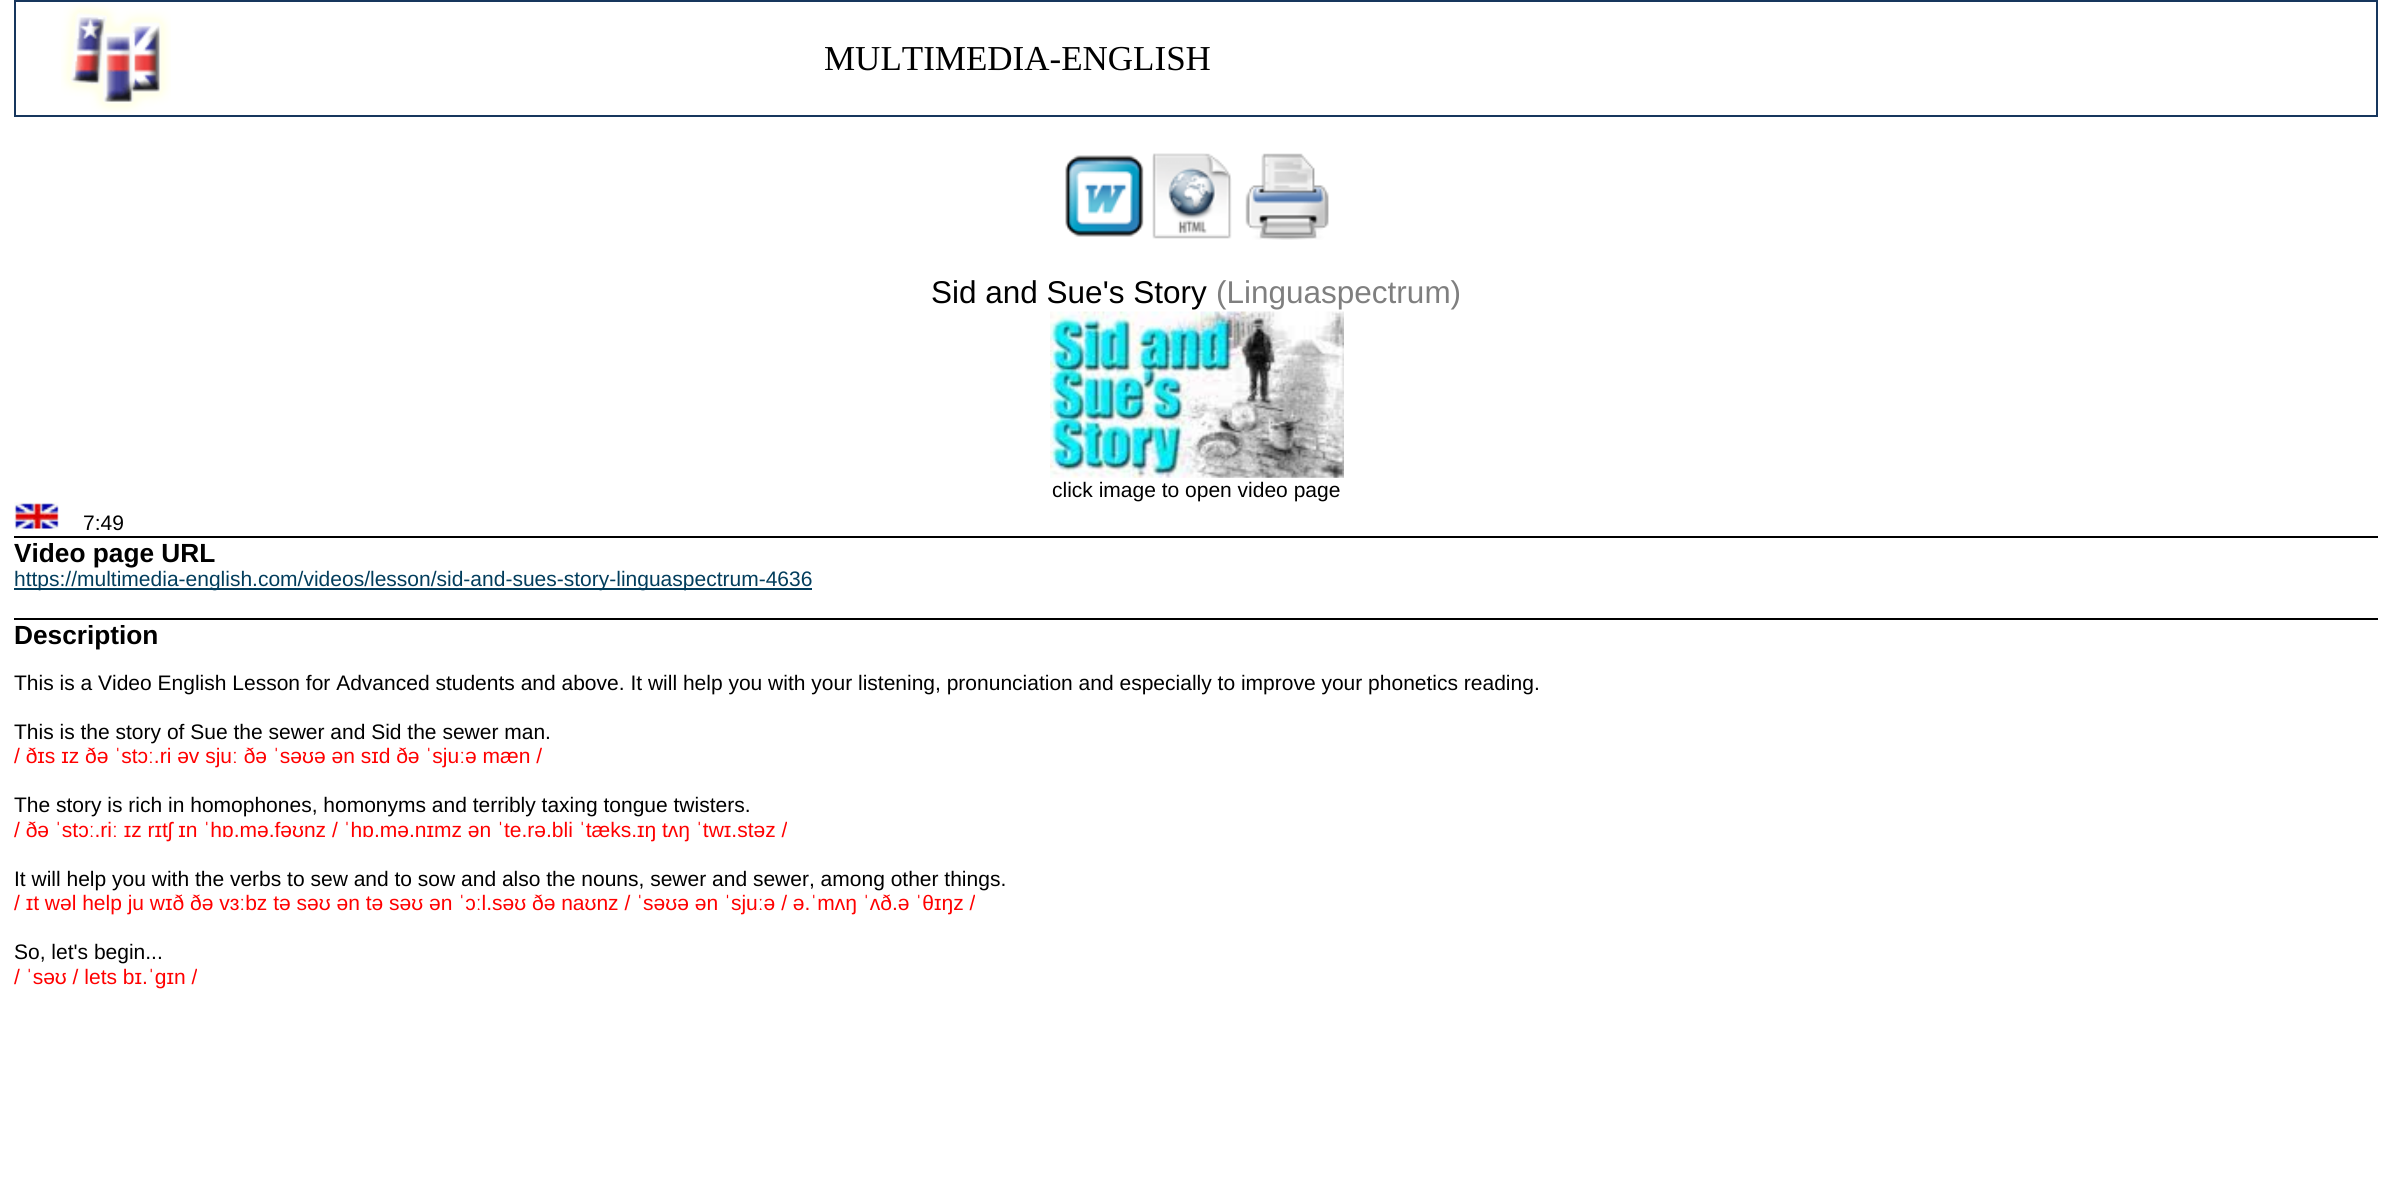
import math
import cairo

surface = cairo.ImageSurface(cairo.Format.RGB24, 2392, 1184)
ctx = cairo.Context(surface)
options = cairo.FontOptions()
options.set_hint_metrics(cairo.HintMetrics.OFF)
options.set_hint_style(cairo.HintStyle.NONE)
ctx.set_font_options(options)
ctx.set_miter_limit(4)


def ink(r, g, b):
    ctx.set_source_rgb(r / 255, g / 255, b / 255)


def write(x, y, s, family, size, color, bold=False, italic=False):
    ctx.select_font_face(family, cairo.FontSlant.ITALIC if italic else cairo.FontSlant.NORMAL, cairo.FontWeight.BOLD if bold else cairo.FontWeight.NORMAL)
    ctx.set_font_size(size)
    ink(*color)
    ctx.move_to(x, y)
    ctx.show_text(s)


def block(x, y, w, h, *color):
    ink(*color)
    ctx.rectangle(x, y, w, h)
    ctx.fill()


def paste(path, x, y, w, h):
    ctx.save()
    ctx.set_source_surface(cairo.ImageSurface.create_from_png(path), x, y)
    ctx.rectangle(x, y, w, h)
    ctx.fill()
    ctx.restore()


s1 = dict(family="Liberation Serif", size=35, color=(0, 0, 0))
s2 = dict(family="Liberation Sans", size=31.5, color=(0, 0, 0))
s3 = dict(family="Liberation Sans", size=31.5, color=(127, 127, 127))
s4 = dict(family="Liberation Sans", size=21, color=(0, 0, 0))
s5 = dict(family="Liberation Sans", size=26.25, color=(0, 0, 0), bold=True)
s6 = dict(family="Liberation Sans", size=21, color=(2, 61, 92))
s7 = dict(family="Liberation Sans", size=21, color=(255, 0, 0))

ink(255, 255, 255)
ctx.paint()
ctx.rectangle(15, 1, 2362, 115)
ink(23, 54, 93)
ctx.stroke()
paste("pic1.png", 61, 3, 110, 111)
write(824, 70, "MULTIMEDIA-ENGLISH", **s1)
paste("pic2.png", 1065, 155, 79, 82)
paste("pic3.png", 1152, 153, 80, 86)
paste("pic4.png", 1245, 153, 84, 87)
write(931, 303, "Sid and Sue's Story", **s2)
write(1216, 303, "(Linguaspectrum)", **s3)
paste("pic5.png", 1050, 311, 294, 167)
write(1052, 497, "click image to open video page", **s4)
paste("pic6.png", 14, 502, 45, 29)
write(83, 530, "7:49", **s4)
block(14, 536, 2364, 2, 0, 0, 0)
write(14, 562, "Video page URL", **s5)
block(14, 588, 798, 2, 2, 61, 92)
write(14, 586, "https://multimedia-english.com/videos/lesson/sid-and-sues-story-linguaspectrum-4636", **s6)
block(14, 618, 2364, 2, 0, 0, 0)
write(14, 644, "Description", **s5)
write(14, 690, "This is a Video English Lesson for Advanced students and above. It will help you with your listening, pronunciation and especially to improve your phonetics reading.", **s4)
write(14, 739, "This is the story of Sue the sewer and Sid the sewer man.", **s4)
write(14, 763, "/ ðɪs ɪz ðə ˈstɔː.ri əv sjuː ðə ˈsəʊə ən sɪd ðə ˈsjuːə mæn /", **s7)
write(14, 812, "The story is rich in homophones, homonyms and terribly taxing tongue twisters.", **s4)
write(14, 837, "/ ðə ˈstɔː.riː ɪz rɪtʃ ɪn ˈhɒ.mə.fəʊnz / ˈhɒ.mə.nɪmz ən ˈte.rə.bli ˈtæks.ɪŋ tʌŋ ˈtwɪ.stəz /", **s7)
write(14, 886, "It will help you with the verbs to sew and to sow and also the nouns, sewer and sewer, among other things.", **s4)
write(14, 910, "/ ɪt wəl help ju wɪð ðə vɜːbz tə səʊ ən tə səʊ ən ˈɔːl.səʊ ðə naʊnz / ˈsəʊə ən ˈsjuːə / ə.ˈmʌŋ ˈʌð.ə ˈθɪŋz /", **s7)
write(14, 959, "So, let's begin...", **s4)
write(14, 984, "/ ˈsəʊ / lets bɪ.ˈɡɪn /", **s7)
surface.write_to_png("screenshot.png")
